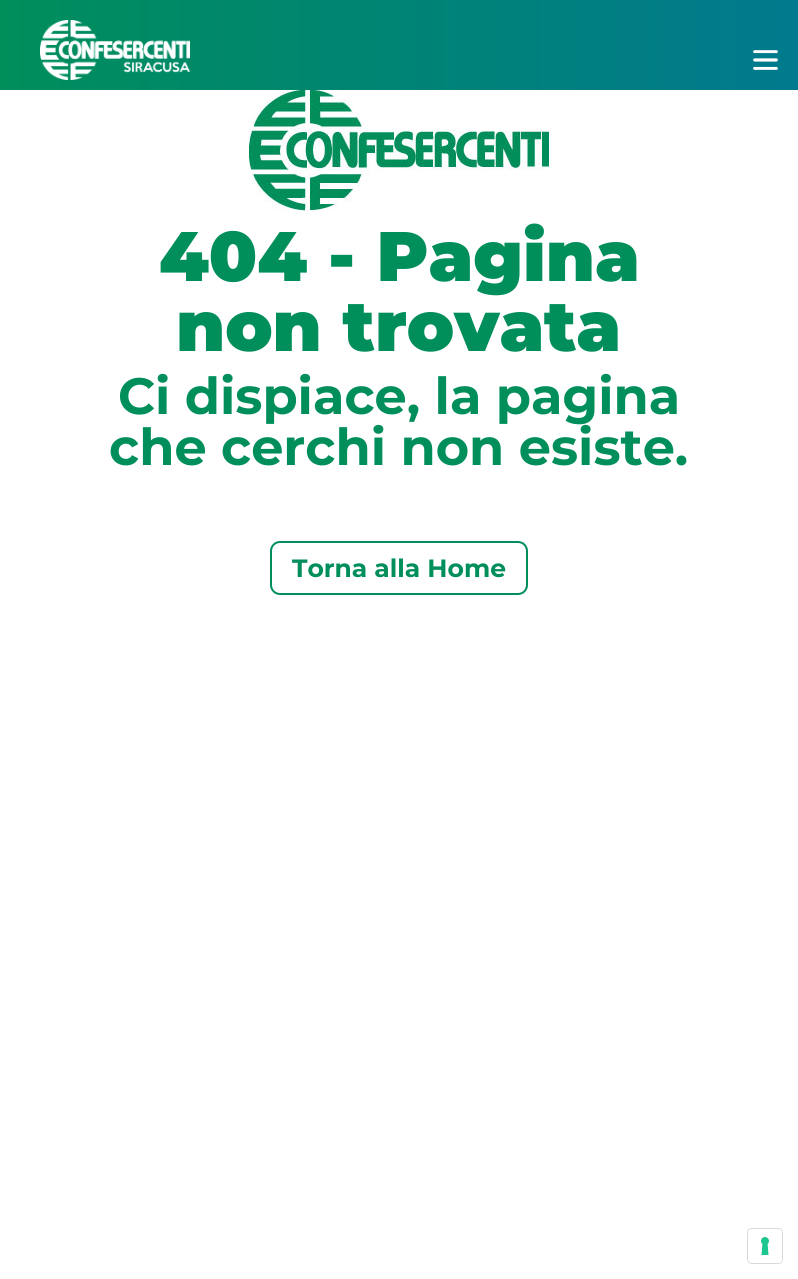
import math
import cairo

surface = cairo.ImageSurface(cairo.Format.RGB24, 798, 1279)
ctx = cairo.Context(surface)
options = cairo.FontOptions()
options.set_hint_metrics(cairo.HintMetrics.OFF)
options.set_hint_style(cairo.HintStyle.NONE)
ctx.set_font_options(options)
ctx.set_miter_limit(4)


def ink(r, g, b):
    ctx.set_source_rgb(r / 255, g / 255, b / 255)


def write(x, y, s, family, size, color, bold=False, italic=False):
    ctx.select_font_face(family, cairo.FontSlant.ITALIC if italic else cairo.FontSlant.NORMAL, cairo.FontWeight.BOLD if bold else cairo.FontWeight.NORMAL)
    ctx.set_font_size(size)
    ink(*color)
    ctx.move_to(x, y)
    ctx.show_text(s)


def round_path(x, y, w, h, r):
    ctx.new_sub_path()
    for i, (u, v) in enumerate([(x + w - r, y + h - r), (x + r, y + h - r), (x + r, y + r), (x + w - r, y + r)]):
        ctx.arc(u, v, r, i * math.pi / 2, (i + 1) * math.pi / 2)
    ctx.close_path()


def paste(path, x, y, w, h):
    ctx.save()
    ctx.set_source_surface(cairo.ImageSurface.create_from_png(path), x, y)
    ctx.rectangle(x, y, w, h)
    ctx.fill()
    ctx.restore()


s1 = dict(family="Montserrat Black", size=70, color=(0, 142, 91))
s2 = dict(family="Montserrat", size=51, color=(0, 142, 91), bold=True)
s3 = dict(family="Montserrat", size=25, color=(0, 142, 91), bold=True)

ink(255, 255, 255)
ctx.paint()
gradient = cairo.LinearGradient(0, 45, 798, 45)
gradient.add_color_stop_rgba(0, 0, 0.557, 0.357, 1)
gradient.add_color_stop_rgba(1, 0, 0.478, 0.557, 1)
ctx.set_source(gradient)
ctx.rectangle(0, 0, 798, 90)
ctx.fill()
paste("pic1.png", 40, 20, 150, 60)
paste("pic2.png", 753, 50, 25, 20)
paste("pic3.png", 249, 90, 300, 121)
write(159, 281, "404 - Pagina", **s1)
write(176, 351, "non trovata", **s1)
write(118, 414, "Ci dispiace, la pagina", **s2)
write(109, 465, "che cerchi non esiste.", **s2)
round_path(271, 542, 256, 52, 9)
ctx.stroke()
write(292, 577, "Torna alla Home", **s3)
round_path(747.5, 1228.5, 35, 35, 4.5)
ink(217, 217, 217)
ctx.set_line_width(1)
ctx.stroke()
ink(255, 255, 255)
round_path(748, 1229, 34, 34, 4)
ctx.fill()
paste("pic4.png", 761, 1237, 8, 18)
surface.write_to_png("screenshot.png")
